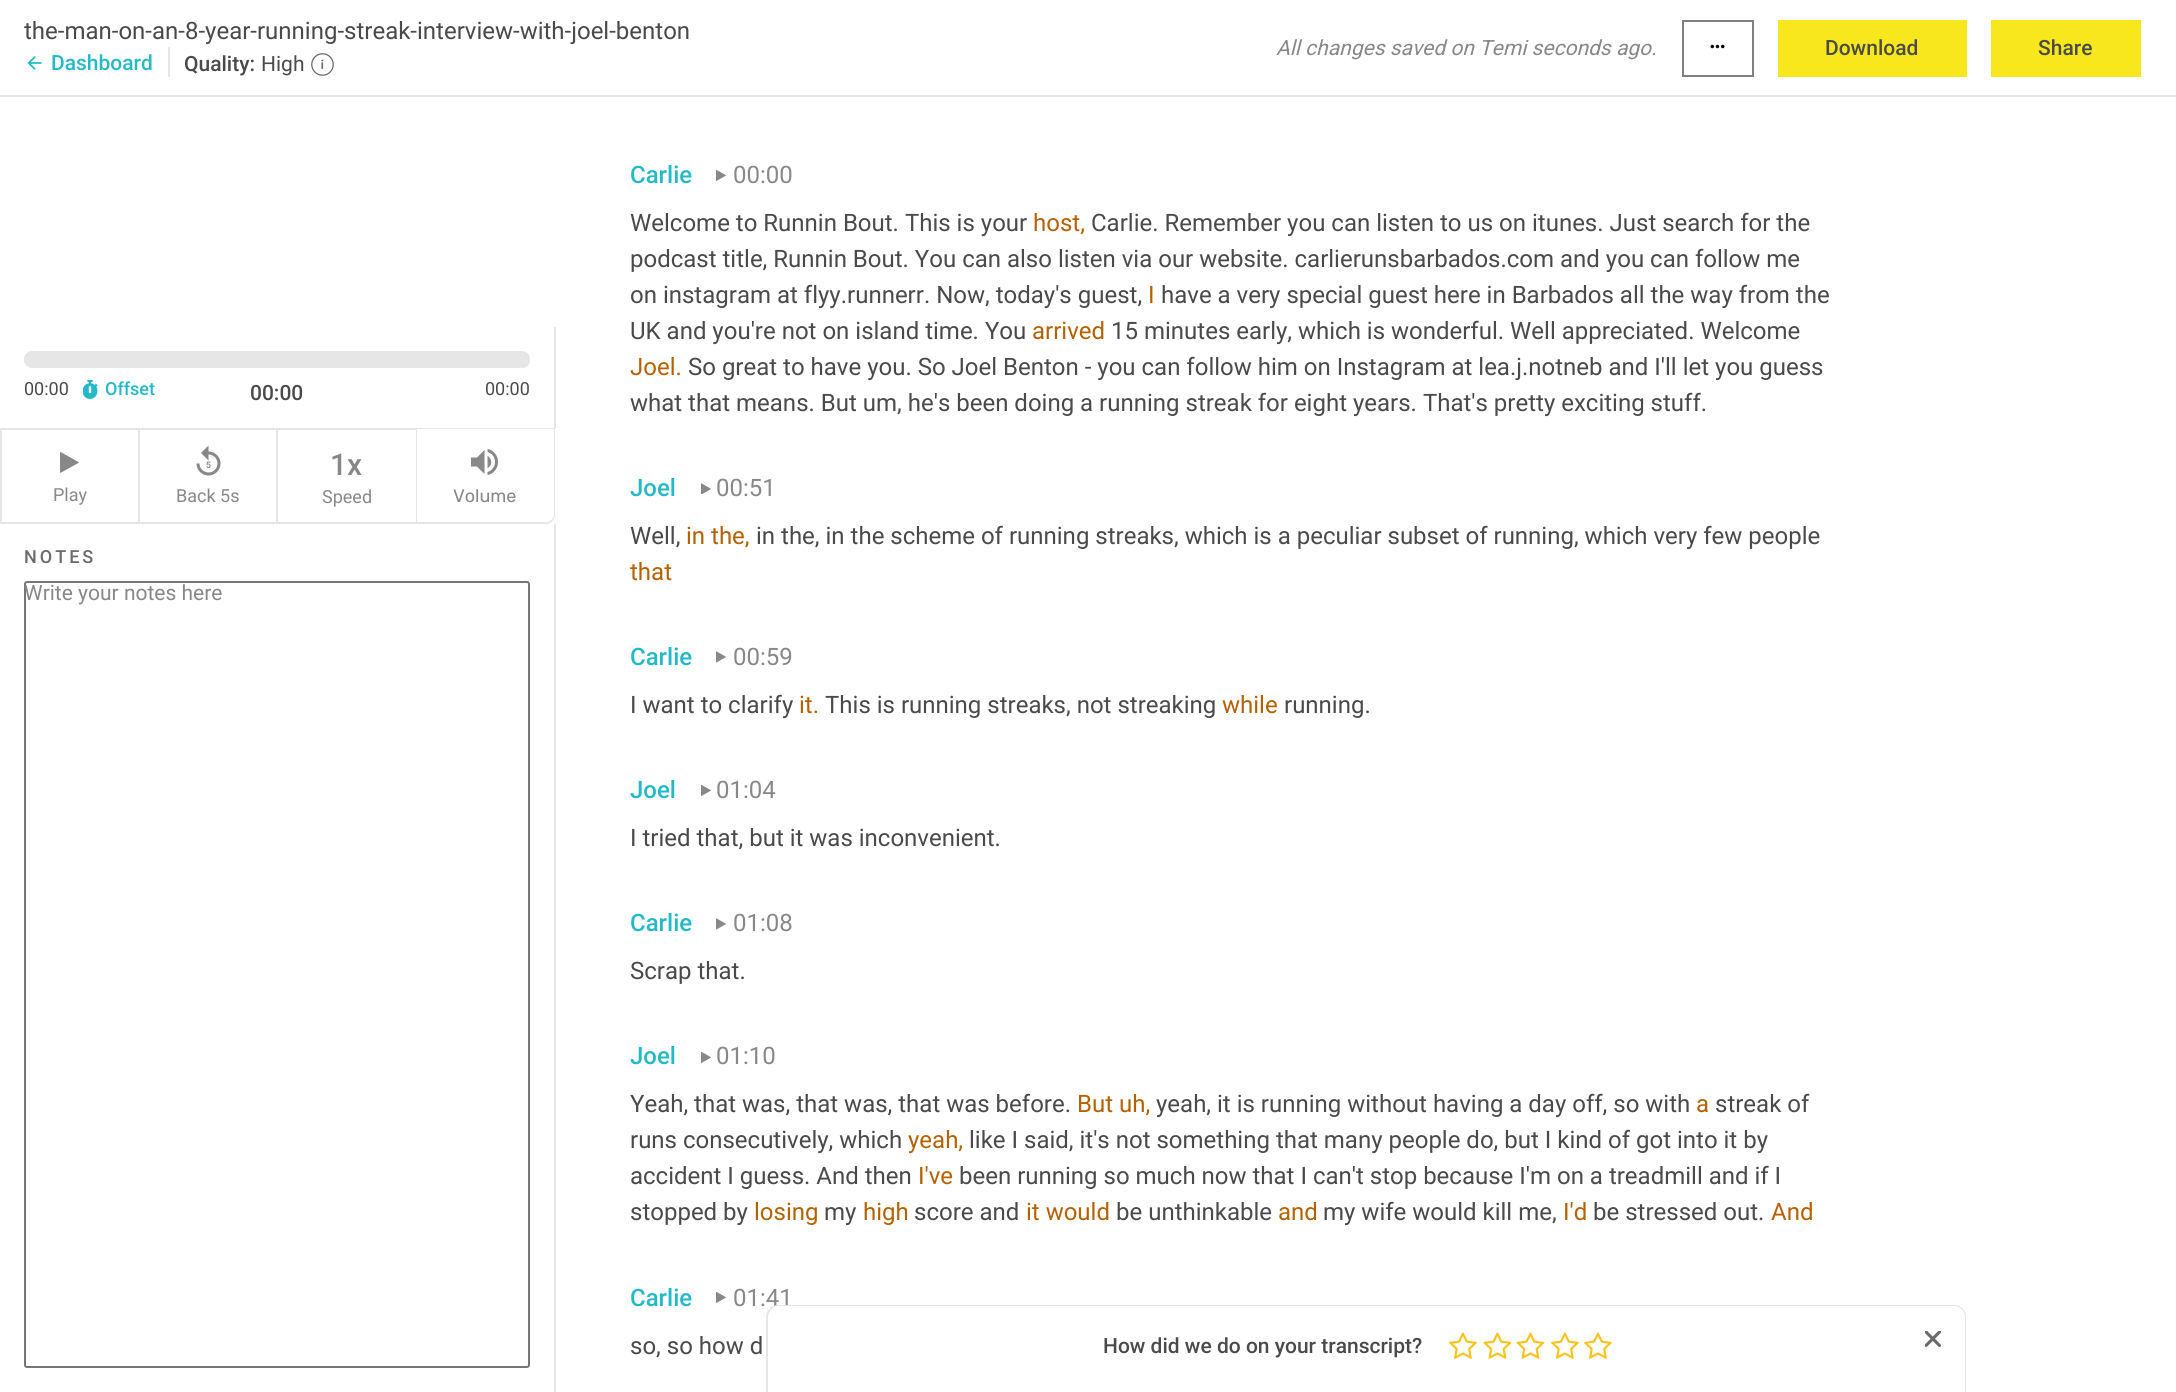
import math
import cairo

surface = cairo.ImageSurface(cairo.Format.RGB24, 2176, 1392)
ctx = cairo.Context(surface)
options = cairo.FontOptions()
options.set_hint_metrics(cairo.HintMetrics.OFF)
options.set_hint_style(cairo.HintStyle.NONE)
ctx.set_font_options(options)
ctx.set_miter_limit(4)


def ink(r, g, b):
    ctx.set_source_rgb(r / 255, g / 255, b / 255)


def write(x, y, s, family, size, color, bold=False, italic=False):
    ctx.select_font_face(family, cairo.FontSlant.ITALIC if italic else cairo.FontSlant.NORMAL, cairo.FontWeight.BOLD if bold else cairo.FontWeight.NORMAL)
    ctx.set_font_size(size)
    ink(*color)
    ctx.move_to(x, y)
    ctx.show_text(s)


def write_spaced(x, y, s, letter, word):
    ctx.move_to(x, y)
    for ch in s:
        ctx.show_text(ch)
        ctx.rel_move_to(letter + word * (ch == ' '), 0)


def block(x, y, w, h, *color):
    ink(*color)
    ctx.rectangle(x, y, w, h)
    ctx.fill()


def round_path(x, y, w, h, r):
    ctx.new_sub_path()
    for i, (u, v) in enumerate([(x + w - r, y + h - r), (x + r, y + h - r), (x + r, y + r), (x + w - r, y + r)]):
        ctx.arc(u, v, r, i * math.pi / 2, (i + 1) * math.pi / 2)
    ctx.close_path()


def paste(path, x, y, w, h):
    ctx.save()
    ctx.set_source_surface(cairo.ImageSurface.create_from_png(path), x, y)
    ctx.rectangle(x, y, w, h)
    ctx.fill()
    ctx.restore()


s1 = dict(family="Roboto", size=24, color=(74, 74, 74))
s2 = dict(family="Roboto Medium", size=21, color=(37, 185, 200))
s3 = dict(family="Roboto Medium", size=21, color=(74, 74, 74))
s4 = dict(family="Roboto", size=21, color=(74, 74, 74))
s5 = dict(family="Roboto", size=21, color=(136, 136, 136), italic=True)
s6 = dict(family="Roboto", size=18, color=(74, 74, 74))
s7 = dict(family="Roboto Medium", size=18, color=(37, 185, 200))
s8 = dict(family="Roboto", size=18, color=(136, 136, 136))
s9 = dict(family="Roboto Medium", size=30, color=(136, 136, 136))
s10 = dict(family="Rubik", size=18, color=(136, 136, 136))
s11 = dict(family="Roboto", size=21, color=(136, 136, 136))
s12 = dict(family="Roboto Medium", size=24, color=(37, 185, 200))
s13 = dict(family="Roboto", size=24, color=(136, 136, 136))
s14 = dict(family="Roboto", size=24, color=(180, 97, 0))

ink(255, 255, 255)
ctx.paint()
block(0, 95, 2176, 2, 230, 230, 230)
write(24, 39, "the-man-on-an-8-year-running-streak-interview-with-joel-benton", **s1)
paste("pic1.png", 27, 56, 15, 14)
write(51, 70, "Dashboard", **s2)
block(168, 47, 2, 30, 230, 230, 230)
write(184, 71, "Quality:", **s3)
write(261, 71, "High", **s4)
paste("pic2.png", 311, 53, 23, 23)
write(1276, 55, "All changes saved on Temi seconds ago.", **s5)
ctx.rectangle(1683, 21, 70, 55)
ink(128, 128, 128)
ctx.stroke()
paste("pic3.png", 1710, 44, 15, 5)
block(1778, 20, 189, 57, 248, 231, 28)
write(1825, 55, "Download", **s3)
block(1991, 20, 150, 57, 248, 231, 28)
write(2038, 55, "Share", **s3)
block(554, 327, 2, 101, 230, 230, 230)
round_path(24, 351, 506, 17, 8)
ctx.fill()
write(24, 395, "00:00", **s6)
paste("pic4.png", 83, 380, 15, 19)
write(105, 395, "Offset", **s7)
write(250, 400, "00:00", **s3)
write(485, 395, "00:00", **s6)
ctx.rectangle(1, 429, 138, 94)
ink(230, 230, 230)
ctx.stroke()
paste("pic5.png", 60, 452, 19, 21)
write(53, 501, "Play", **s8)
block(140, 428, 277, 2, 230, 230, 230)
block(276, 428, 2, 96, 230, 230, 230)
block(140, 522, 138, 2, 230, 230, 230)
paste("pic6.png", 196, 445, 25, 31)
write(176, 502, "Back 5s", **s8)
block(416, 428, 1, 96, 230, 230, 230)
block(278, 522, 139, 2, 230, 230, 230)
write(330, 475, "1x", **s9)
write(322, 503, "Speed", **s8)
ink(230, 230, 230)
ctx.set_fill_rule(cairo.FillRule.EVEN_ODD)
ctx.new_path()
ctx.move_to(417, 428)
ctx.line_to(555, 428)
ctx.line_to(555, 514)
ctx.curve_to(555, 519, 551, 524, 546, 524)
ctx.line_to(417, 524)
ctx.close_path()
ctx.move_to(417, 429)
ctx.line_to(554, 429)
ctx.line_to(554, 514)
ctx.curve_to(554, 519, 550, 522, 546, 522)
ctx.line_to(417, 522)
ctx.close_path()
ctx.fill()
ink(255, 255, 255)
ctx.new_path()
ctx.move_to(417, 429)
ctx.line_to(554, 429)
ctx.line_to(554, 513)
ctx.curve_to(554, 518, 550, 522, 545, 522)
ctx.line_to(417, 522)
ctx.close_path()
ctx.fill()
paste("pic7.png", 471, 448, 27, 28)
write(453, 502, "Volume", **s10)
block(554, 524, 2, 868, 230, 230, 230)
ctx.select_font_face("Roboto Medium")
ink(106, 106, 106)
write_spaced(24, 563, "NOTES", 3, 0)
round_path(25, 582, 504, 785, 2)
ink(118, 118, 118)
ctx.stroke()
write(24, 600, "Write your notes here", **s11)
write(630, 183, "Carlie", **s12)
paste("pic8.png", 716, 170, 10, 12)
write(733, 183, "00:00", **s13)
write(630, 231, "Welcome to Runnin Bout. This is your", **s1)
write(1033, 231, "host,", **s14)
write(1091, 231, "Carlie. Remember you can listen to us on itunes. Just search for the", **s1)
write(630, 267, "podcast title, Runnin Bout. You can also listen via our website. carlierunsbarbados.com and you can follow me", **s1)
write(630, 303, "on instagram at flyy.runnerr. Now, today's guest,", **s1)
write(1148, 303, "I", **s14)
write(1161, 303, "have a very special guest here in Barbados all the way from the", **s1)
write(630, 339, "UK and you're not on island time. You", **s1)
write(1032, 339, "arrived", **s14)
write(1111, 339, "15 minutes early, which is wonderful. Well appreciated. Welcome", **s1)
write(630, 375, "Joel.", **s14)
write(688, 375, "So great to have you. So Joel Benton - you can follow him on Instagram at lea.j.notneb and I'll let you guess", **s1)
write(630, 411, "what that means. But um, he's been doing a running streak for eight years. That's pretty exciting stuff.", **s1)
write(630, 496, "Joel", **s12)
paste("pic9.png", 701, 483, 10, 11)
write(716, 496, "00:51", **s13)
write(630, 544, "Well,", **s1)
write(686, 544, "in the,", **s14)
write(756, 544, "in the, in the scheme of running streaks, which is a peculiar subset of running, which very few people", **s1)
write(630, 580, "that", **s14)
write(630, 665, "Carlie", **s12)
paste("pic10.png", 716, 651, 10, 12)
write(733, 665, "00:59", **s13)
write(630, 713, "I want to clarify", **s1)
write(799, 713, "it.", **s14)
write(825, 713, "This is running streaks, not streaking", **s1)
write(1222, 713, "while", **s14)
write(1284, 713, "running.", **s1)
write(630, 798, "Joel", **s12)
paste("pic8.png", 701, 785, 10, 12)
write(716, 798, "01:04", **s13)
write(630, 846, "I tried that, but it was inconvenient.", **s1)
write(630, 931, "Carlie", **s12)
paste("pic10.png", 716, 918, 10, 12)
write(733, 931, "01:08", **s13)
write(630, 979, "Scrap that.", **s1)
write(630, 1064, "Joel", **s12)
paste("pic8.png", 701, 1052, 10, 12)
write(716, 1064, "01:10", **s13)
write(630, 1112, "Yeah, that was, that was, that was before.", **s1)
write(1077, 1112, "But uh,", **s14)
write(1156, 1112, "yeah, it is running without having a day off, so with", **s1)
write(1696, 1112, "a", **s14)
write(1715, 1112, "streak of", **s1)
write(630, 1148, "runs consecutively, which", **s1)
write(908, 1148, "yeah,", **s14)
write(969, 1148, "like I said, it's not something that many people do, but I kind of got into it by", **s1)
write(630, 1184, "accident I guess. And then", **s1)
write(918, 1184, "I've", **s14)
write(959, 1184, "been running so much now that I can't stop because I'm on a treadmill and if I", **s1)
write(630, 1220, "stopped by", **s1)
write(754, 1220, "losing", **s14)
write(824, 1220, "my", **s1)
write(863, 1220, "high", **s14)
write(914, 1220, "score and", **s1)
write(1026, 1220, "it would", **s14)
write(1116, 1220, "be unthinkable", **s1)
write(1278, 1220, "and", **s14)
write(1323, 1220, "my wife would kill me,", **s1)
write(1563, 1220, "I'd", **s14)
write(1593, 1220, "be stressed out.", **s1)
write(1771, 1220, "And", **s14)
write(630, 1306, "Carlie", **s12)
paste("pic8.png", 716, 1292, 10, 12)
write(733, 1306, "01:41", **s13)
write(630, 1354, "so, so how d", **s1)
ink(230, 230, 230)
ctx.new_path()
ctx.move_to(778, 1305)
ctx.line_to(1954, 1305)
ctx.curve_to(1961, 1305, 1966, 1310, 1966, 1317)
ctx.line_to(1966, 1392)
ctx.line_to(766, 1392)
ctx.line_to(766, 1317)
ctx.curve_to(766, 1310, 772, 1305, 778, 1305)
ctx.close_path()
ctx.move_to(778, 1306)
ctx.line_to(1954, 1306)
ctx.curve_to(1960, 1306, 1965, 1311, 1965, 1317)
ctx.line_to(1965, 1392)
ctx.line_to(768, 1392)
ctx.line_to(768, 1317)
ctx.curve_to(768, 1311, 773, 1306, 778, 1306)
ctx.close_path()
ctx.fill()
write(1103, 1353, "How did we do on your transcript?", **s3)
paste("pic11.png", 1449, 1332, 28, 27)
paste("pic12.png", 1483, 1332, 29, 27)
paste("pic12.png", 1516, 1332, 29, 27)
paste("pic11.png", 1551, 1332, 28, 27)
paste("pic11.png", 1584, 1332, 28, 27)
paste("pic13.png", 1925, 1331, 16, 16)
surface.write_to_png("screenshot.png")
